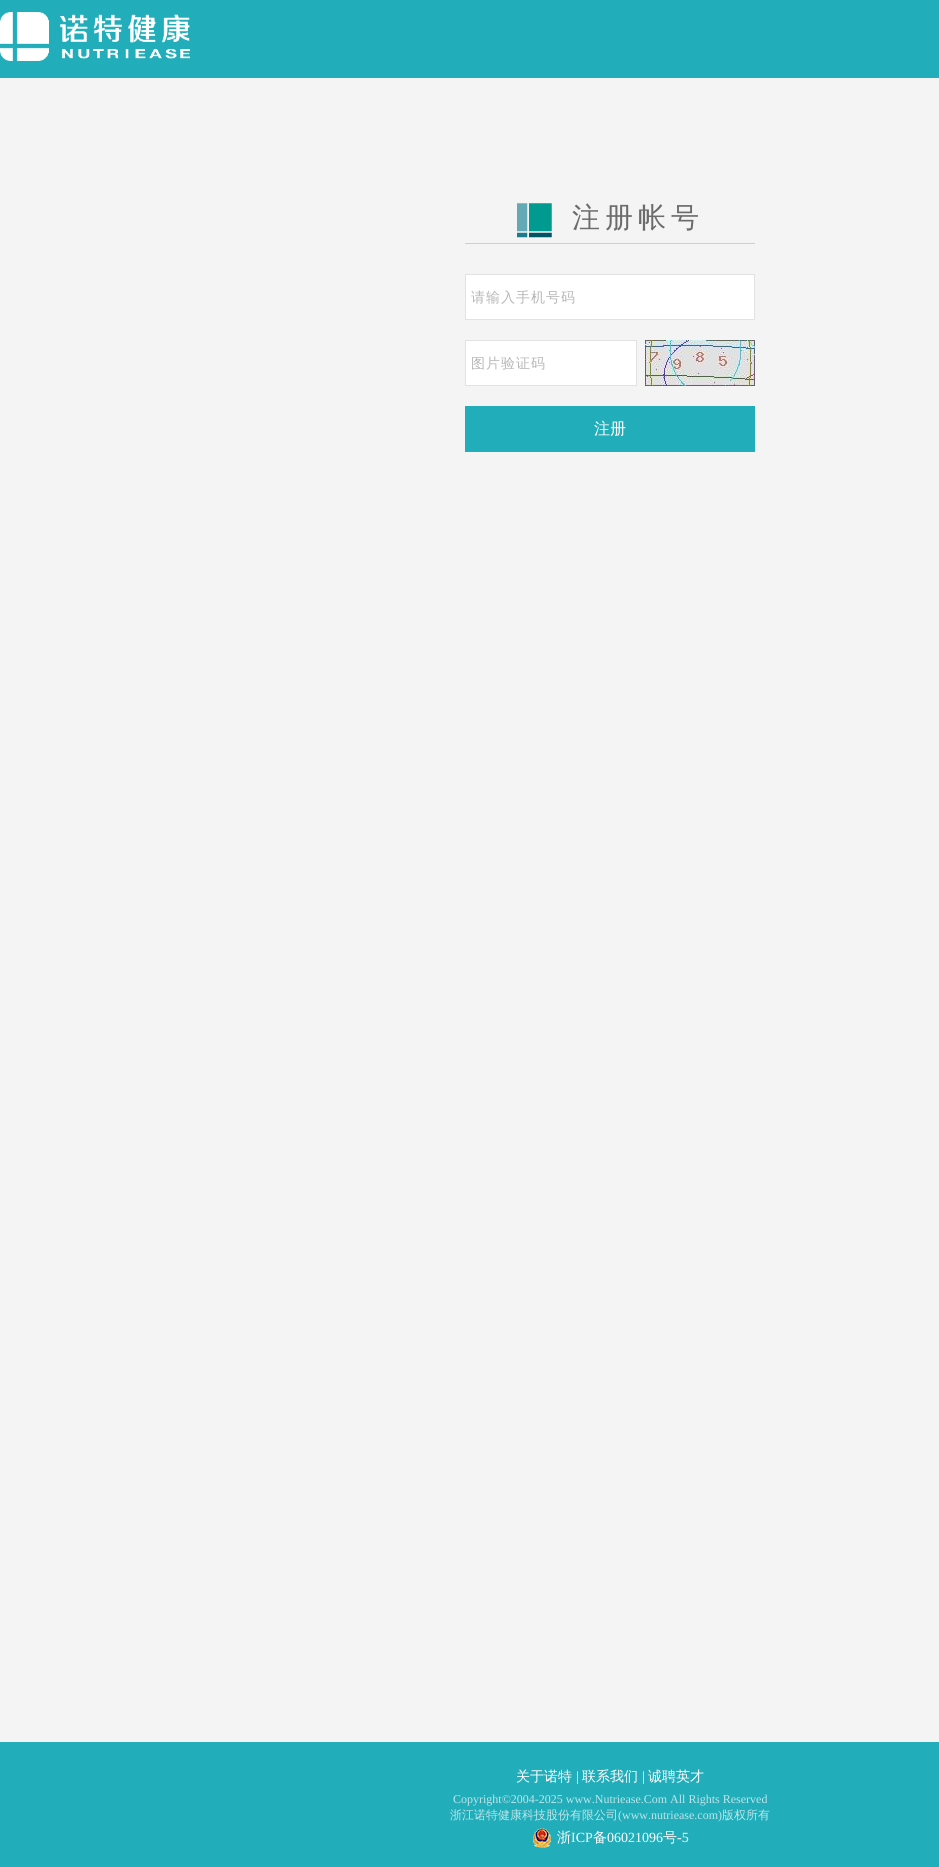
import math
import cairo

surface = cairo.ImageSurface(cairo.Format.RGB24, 939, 1867)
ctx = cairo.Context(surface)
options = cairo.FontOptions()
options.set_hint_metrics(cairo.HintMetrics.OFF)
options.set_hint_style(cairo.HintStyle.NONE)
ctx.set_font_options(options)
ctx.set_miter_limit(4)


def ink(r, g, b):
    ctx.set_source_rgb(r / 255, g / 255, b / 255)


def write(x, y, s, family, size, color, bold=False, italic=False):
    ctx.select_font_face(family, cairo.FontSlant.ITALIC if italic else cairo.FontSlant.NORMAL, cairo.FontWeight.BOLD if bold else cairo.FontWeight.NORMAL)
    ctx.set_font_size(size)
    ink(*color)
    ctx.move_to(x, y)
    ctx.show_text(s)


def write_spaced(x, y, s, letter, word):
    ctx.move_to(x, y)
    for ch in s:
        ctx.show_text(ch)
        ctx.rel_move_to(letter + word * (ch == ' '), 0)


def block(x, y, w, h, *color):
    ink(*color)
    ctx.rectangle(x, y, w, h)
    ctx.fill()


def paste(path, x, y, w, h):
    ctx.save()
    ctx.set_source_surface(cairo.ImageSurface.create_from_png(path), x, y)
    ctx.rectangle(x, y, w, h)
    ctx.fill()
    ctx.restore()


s1 = dict(family="WenQuanYi Zen Hei Medium", size=16, color=(255, 255, 255))
s2 = dict(family="WenQuanYi Zen Hei Medium", size=14, color=(255, 255, 255))
s3 = dict(family="Liberation Serif", size=14, color=(255, 255, 255))
s4 = dict(family="Liberation Serif", size=12, color=(188, 230, 234))
s5 = dict(family="WenQuanYi Zen Hei Medium", size=12, color=(188, 230, 234))

ink(244, 244, 244)
ctx.paint()
block(0, 0, 939, 78, 33, 173, 186)
paste("pic1.png", 0, 12, 190, 49)
block(465, 243, 290, 1, 206, 206, 206)
paste("pic2.png", 517, 203, 35, 35)
ctx.select_font_face("WenQuanYi Zen Hei Medium")
ctx.set_font_size(28)
ink(107, 107, 107)
write_spaced(572, 227, "注册帐号", 5, 0)
ink(255, 255, 255)
ctx.rectangle(465.5, 274.5, 289, 45)
ctx.fill_preserve()
ink(226, 226, 226)
ctx.set_line_width(1)
ctx.stroke()
ctx.set_font_size(14)
ink(183, 183, 183)
write_spaced(471, 302, "请输入手机号码", 1, 0)
ink(255, 255, 255)
ctx.rectangle(465.5, 340.5, 171, 45)
ctx.fill_preserve()
ink(226, 226, 226)
ctx.stroke()
ink(183, 183, 183)
write_spaced(471, 368, "图片验证码", 1, 0)
paste("pic3.png", 645, 340, 110, 46)
block(465, 406, 290, 46, 33, 174, 186)
write(594, 434, "注册", **s1)
block(0, 1742, 939, 125, 33, 173, 186)
write(516, 1781, "关于诺特", **s2)
write(576, 1781, "|", **s3)
write(582, 1781, "联系我们", **s2)
write(642, 1781, "|", **s3)
write(648, 1781, "诚聘英才", **s2)
write(453, 1803, "Copyright©2004-2025 www.Nutriease.Com All Rights Reserved", **s4)
write(450, 1819, "浙江诺特健康科技股份有限公司", **s5)
write(618, 1819, "(www.nutriease.com)", **s4)
write(722, 1819, "版权所有", **s5)
paste("pic4.png", 533, 1828, 18, 20)
write(557, 1842, "浙", **s2)
write(571, 1842, "ICP", **s3)
write(593, 1842, "备", **s2)
write(607, 1842, "06021096", **s3)
write(663, 1842, "号", **s2)
write(677, 1842, "-5", **s3)
surface.write_to_png("screenshot.png")
